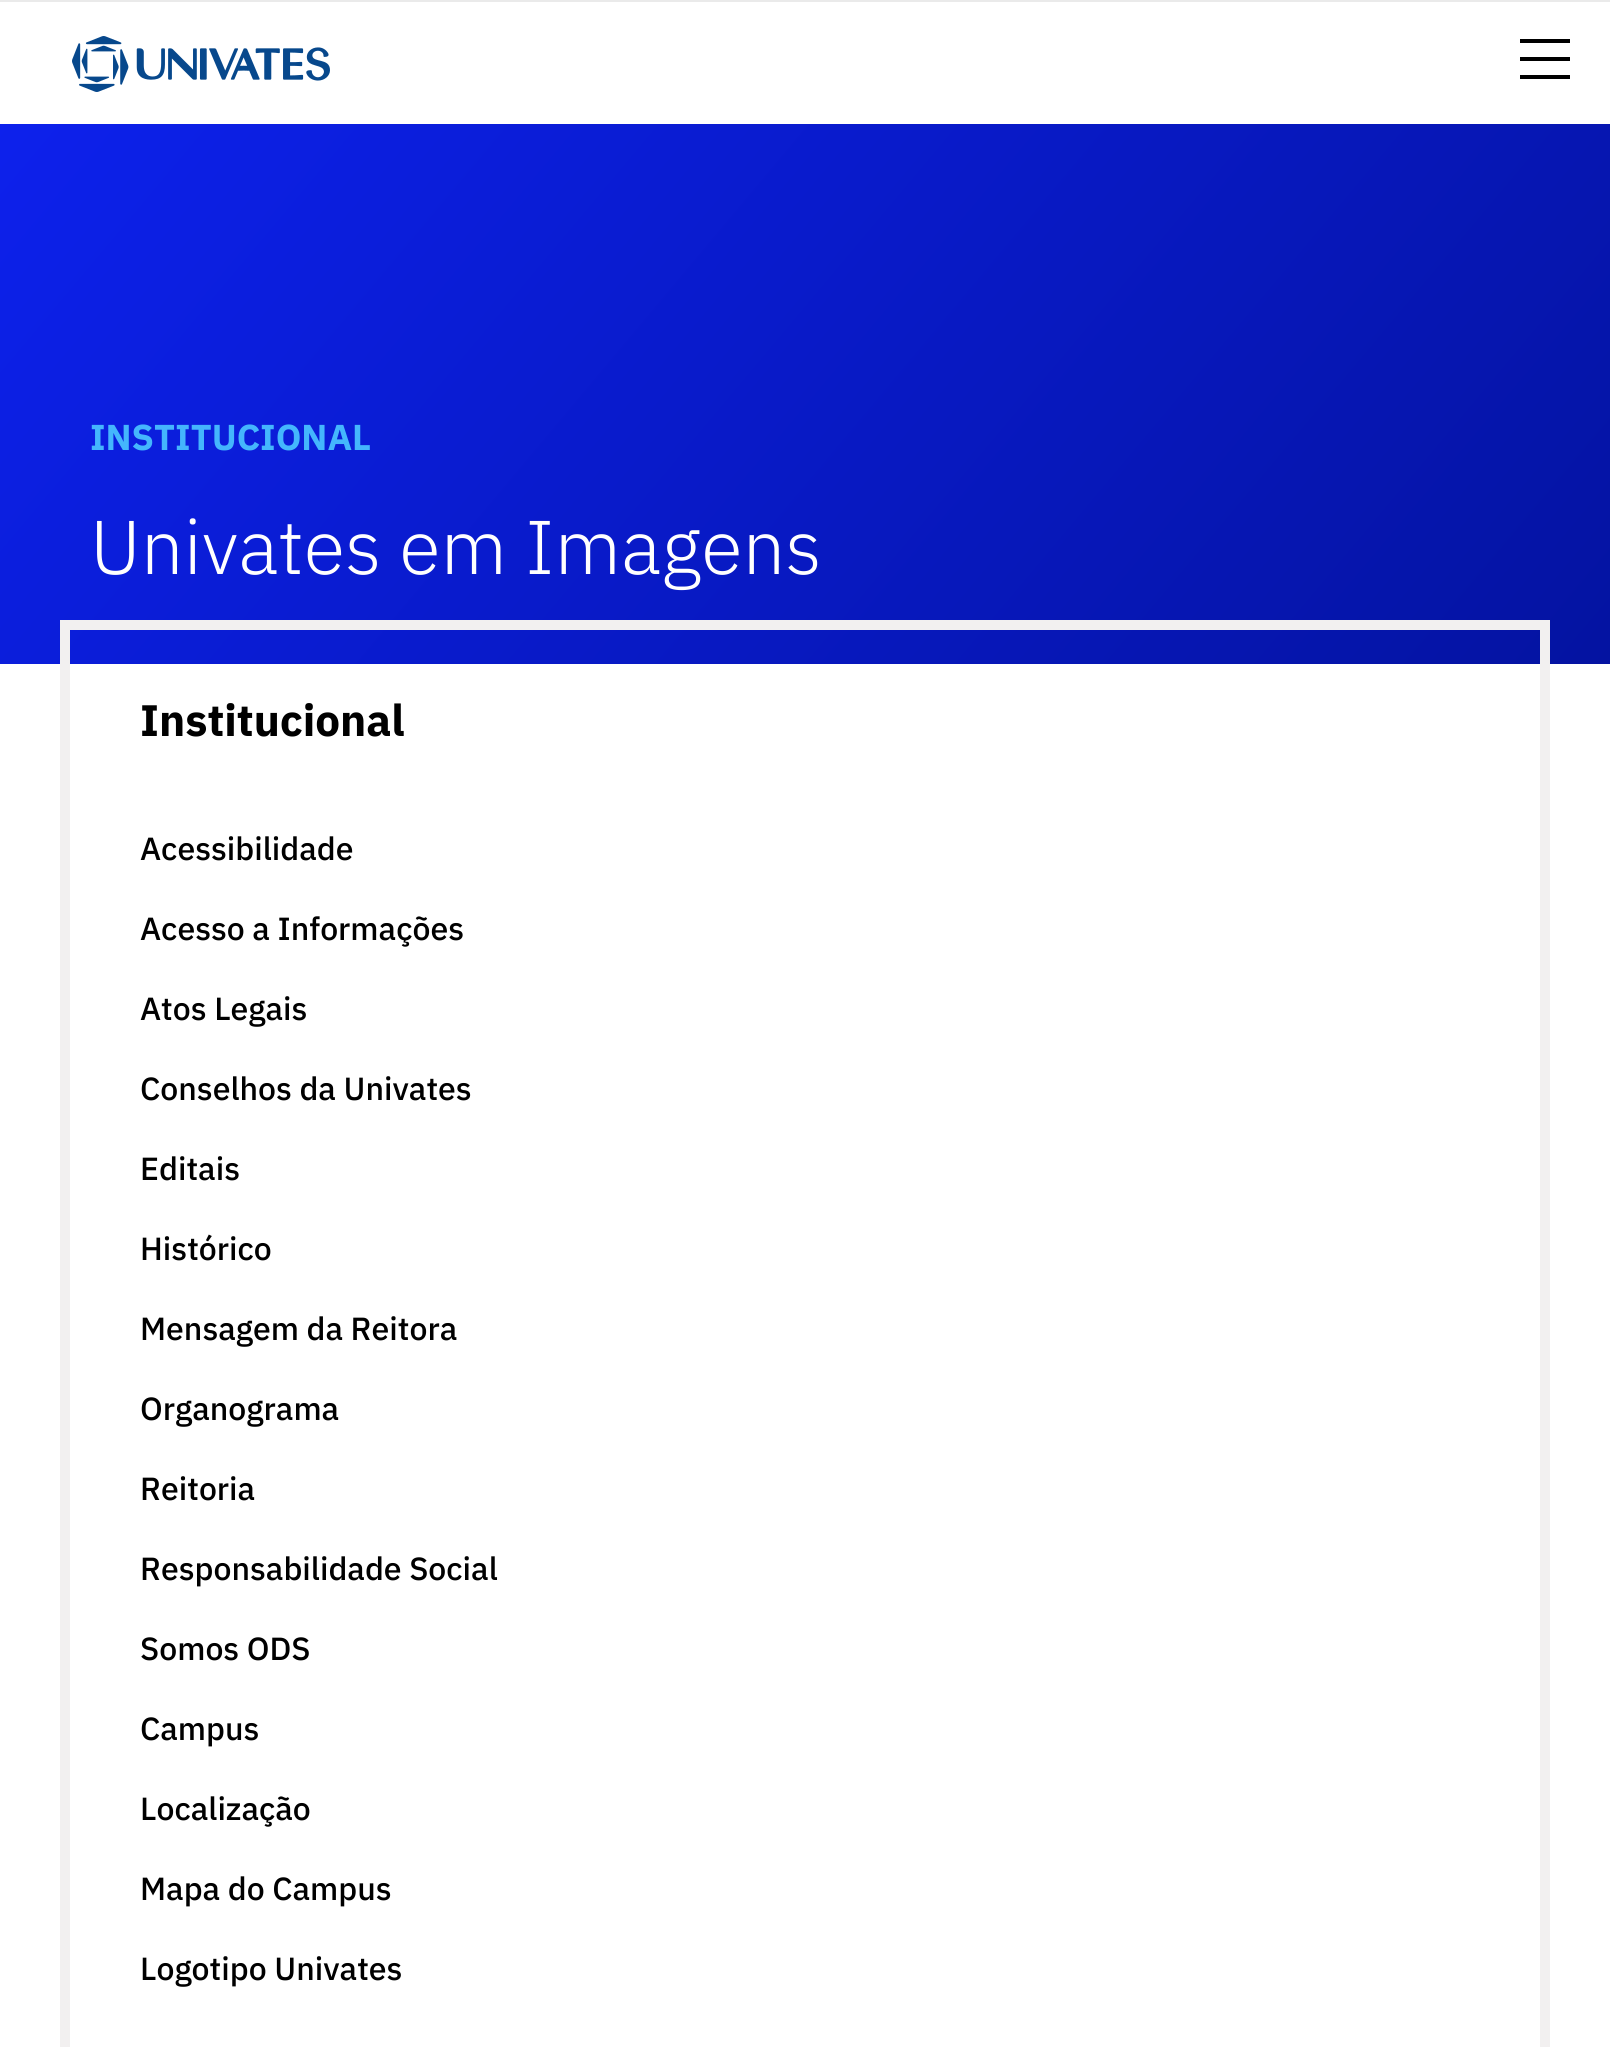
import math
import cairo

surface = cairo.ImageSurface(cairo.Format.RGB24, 1610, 2047)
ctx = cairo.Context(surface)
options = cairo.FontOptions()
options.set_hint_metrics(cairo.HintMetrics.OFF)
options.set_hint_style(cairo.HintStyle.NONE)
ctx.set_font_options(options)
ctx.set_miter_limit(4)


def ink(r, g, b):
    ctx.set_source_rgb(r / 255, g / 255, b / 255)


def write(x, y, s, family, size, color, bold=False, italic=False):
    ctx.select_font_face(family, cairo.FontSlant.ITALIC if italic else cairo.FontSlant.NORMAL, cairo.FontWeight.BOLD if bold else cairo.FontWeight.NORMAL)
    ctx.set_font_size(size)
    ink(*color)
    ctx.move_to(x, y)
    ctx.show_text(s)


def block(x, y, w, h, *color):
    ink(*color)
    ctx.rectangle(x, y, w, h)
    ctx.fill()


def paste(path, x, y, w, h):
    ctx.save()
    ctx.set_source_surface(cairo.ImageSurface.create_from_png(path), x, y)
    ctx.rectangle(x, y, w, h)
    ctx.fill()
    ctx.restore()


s1 = dict(family="IBM Plex Sans", size=36, color=(68, 182, 253), bold=True)
s2 = dict(family="IBM Plex Sans Light", size=76, color=(255, 255, 255))
s3 = dict(family="IBM Plex Sans", size=44, color=(0, 0, 0), bold=True)
s4 = dict(family="IBM Plex Sans Medium", size=32, color=(0, 0, 0))

ink(255, 255, 255)
ctx.paint()
block(0, 0, 1610, 2, 234, 234, 234)
paste("pic1.png", 72, 36, 258, 56)
ink(0, 0, 0)
ctx.new_path()
ctx.move_to(1520, 79)
ctx.line_to(1570, 79)
ctx.line_to(1570, 75)
ctx.line_to(1520, 75)
ctx.close_path()
ctx.move_to(1520, 61)
ctx.line_to(1570, 61)
ctx.line_to(1570, 57)
ctx.line_to(1520, 57)
ctx.close_path()
ctx.move_to(1520, 43)
ctx.line_to(1570, 43)
ctx.line_to(1570, 39)
ctx.line_to(1520, 39)
ctx.close_path()
ctx.fill()
gradient = cairo.LinearGradient(200, -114, 1410, 902)
gradient.add_color_stop_rgba(0, 0.051, 0.129, 0.925, 1)
gradient.add_color_stop_rgba(1, 0.016, 0.075, 0.631, 1)
ctx.set_source(gradient)
ctx.rectangle(0, 124, 1610, 540)
ctx.fill()
write(90, 450, "INSTITUCIONAL", **s1)
write(90, 574, "Univates em Imagens", **s2)
ctx.rectangle(65, 625, 1480, 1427)
ink(242, 240, 240)
ctx.set_line_width(10)
ctx.stroke()
write(140, 736, "Institucional", **s3)
write(140, 860, "Acessibilidade", **s4)
write(140, 940, "Acesso a Informações", **s4)
write(140, 1020, "Atos Legais", **s4)
write(140, 1100, "Conselhos da Univates", **s4)
write(140, 1180, "Editais", **s4)
write(140, 1260, "Histórico", **s4)
write(140, 1340, "Mensagem da Reitora", **s4)
write(140, 1420, "Organograma", **s4)
write(140, 1500, "Reitoria", **s4)
write(140, 1580, "Responsabilidade Social", **s4)
write(140, 1660, "Somos ODS", **s4)
write(140, 1740, "Campus", **s4)
write(140, 1820, "Localização", **s4)
write(140, 1900, "Mapa do Campus", **s4)
write(140, 1980, "Logotipo Univates", **s4)
surface.write_to_png("screenshot.png")
